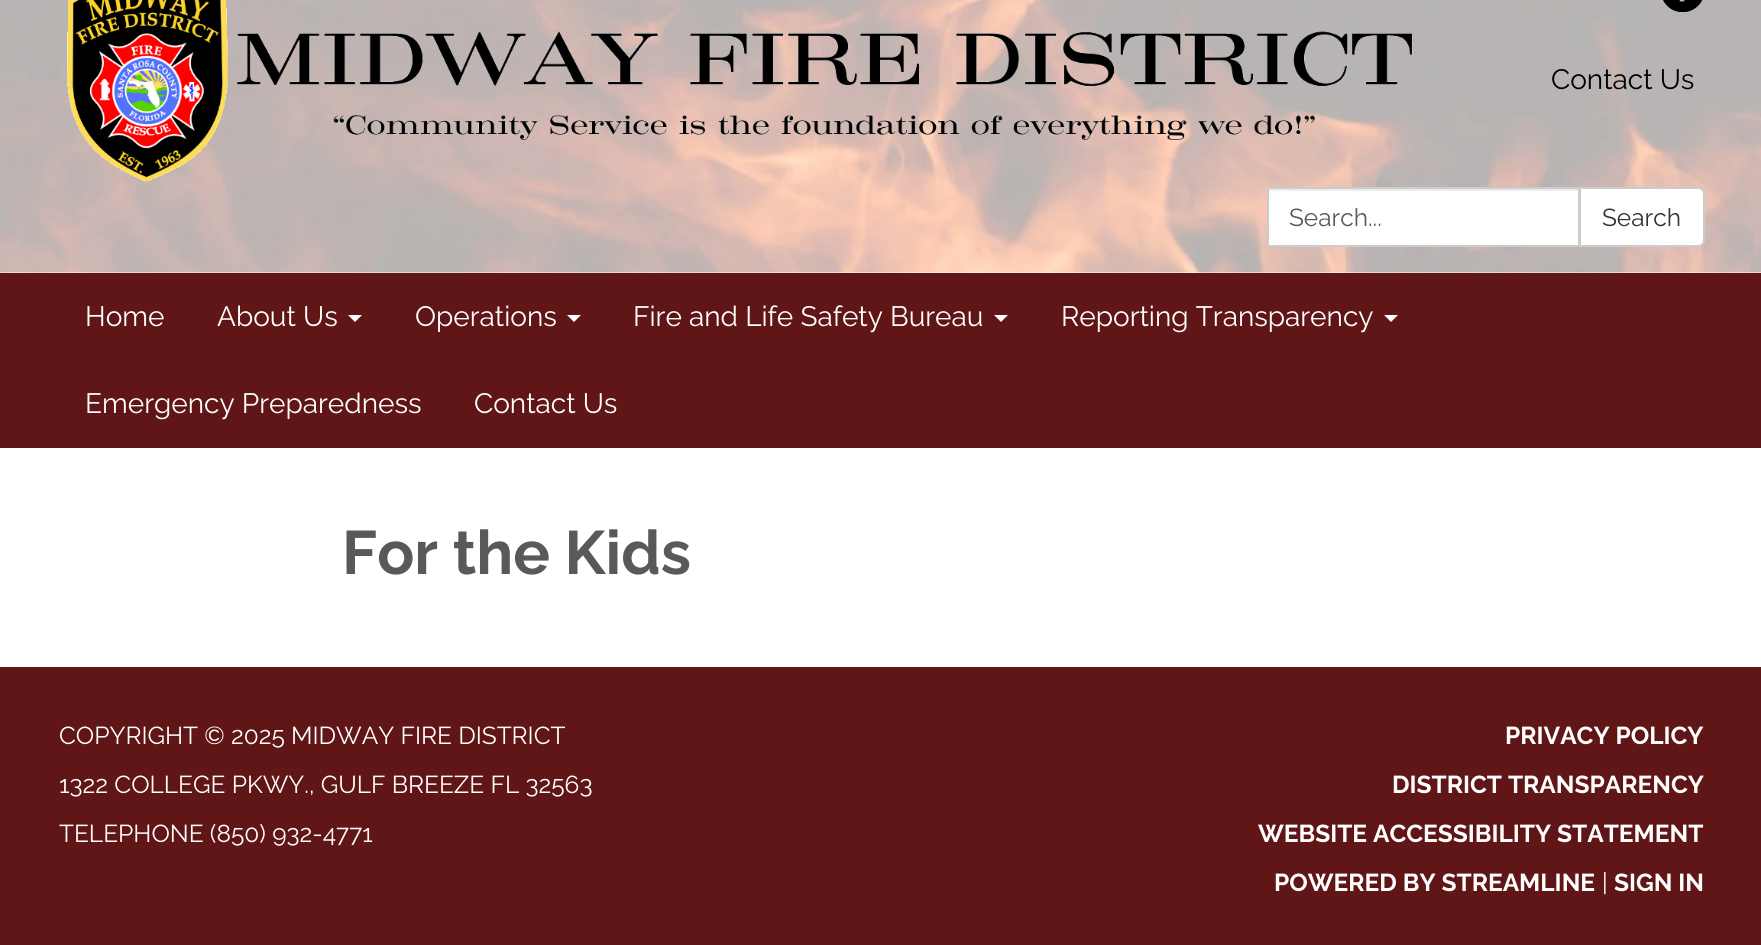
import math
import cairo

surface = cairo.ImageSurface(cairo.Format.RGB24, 1761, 945)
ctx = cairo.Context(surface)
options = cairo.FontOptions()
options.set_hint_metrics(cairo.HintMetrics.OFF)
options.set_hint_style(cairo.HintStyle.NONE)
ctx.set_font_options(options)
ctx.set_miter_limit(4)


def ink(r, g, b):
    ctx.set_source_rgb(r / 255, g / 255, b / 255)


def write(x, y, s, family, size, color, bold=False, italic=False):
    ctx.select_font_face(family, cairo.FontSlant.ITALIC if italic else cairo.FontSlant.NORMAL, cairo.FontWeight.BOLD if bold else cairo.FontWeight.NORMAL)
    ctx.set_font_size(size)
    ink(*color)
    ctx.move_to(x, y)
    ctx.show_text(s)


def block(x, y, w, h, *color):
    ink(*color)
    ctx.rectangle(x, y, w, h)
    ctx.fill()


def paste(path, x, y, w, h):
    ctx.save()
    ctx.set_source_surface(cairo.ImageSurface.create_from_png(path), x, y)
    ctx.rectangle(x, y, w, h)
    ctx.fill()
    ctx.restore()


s1 = dict(family="Raleway", size=28, color=(0, 0, 0))
s2 = dict(family="Raleway", size=24.5, color=(88, 89, 91))
s3 = dict(family="Raleway", size=24.5, color=(51, 51, 51))
s4 = dict(family="Raleway", size=28, color=(255, 255, 255))
s5 = dict(family="Raleway", size=61.25, color=(88, 89, 91), bold=True)
s6 = dict(family="Raleway", size=24.5, color=(255, 255, 255))
s7 = dict(family="Raleway", size=24.5, color=(255, 255, 255), bold=True)

ink(96, 22, 22)
ctx.paint()
block(0, 272, 1761, 1, 255, 255, 255)
paste("pic1.png", 0, 0, 1761, 273)
paste("pic2.png", 67, 0, 1346, 182)
paste("pic3.png", 1663, 0, 40, 12)
write(1551, 89, "Contact Us", **s1)
block(1269, 191, 309, 54, 255, 255, 255)
block(1269, 189, 310, 2, 236, 236, 236)
ctx.rectangle(1268, 188, 311, 58)
ink(204, 204, 204)
ctx.stroke()
write(1289, 226, "Search...", **s2)
ink(255, 255, 255)
ctx.new_path()
ctx.move_to(1580, 188)
ctx.line_to(1698, 188)
ctx.curve_to(1701.5, 188, 1704, 190.5, 1704, 194)
ctx.line_to(1704, 240)
ctx.curve_to(1704, 243.5, 1701.5, 246, 1698, 246)
ctx.line_to(1580, 246)
ctx.close_path()
ctx.fill_preserve()
ink(204, 204, 204)
ctx.stroke()
write(1602, 226, "Search", **s3)
write(85, 326, "Home", **s4)
write(217, 326, "About Us", **s4)
ctx.new_path()
ctx.move_to(348, 315)
ctx.line_to(362, 315)
ctx.line_to(355, 322)
ctx.close_path()
ctx.fill()
write(415, 326, "Operations", **s4)
ctx.new_path()
ctx.move_to(567, 315)
ctx.line_to(581, 315)
ctx.line_to(574, 322)
ctx.close_path()
ctx.fill()
write(633, 326, "Fire and Life Safety Bureau", **s4)
ctx.new_path()
ctx.move_to(994, 315)
ctx.line_to(1008, 315)
ctx.line_to(1001, 322)
ctx.close_path()
ctx.fill()
write(1061, 326, "Reporting Transparency", **s4)
ctx.new_path()
ctx.move_to(1384, 315)
ctx.line_to(1398, 315)
ctx.line_to(1391, 322)
ctx.close_path()
ctx.fill()
write(85, 413, "Emergency Preparedness", **s4)
write(474, 413, "Contact Us", **s4)
block(0, 448, 1761, 219, 255, 255, 255)
write(342, 574, "For the Kids", **s5)
write(59, 744, "COPYRIGHT © 2025 MIDWAY FIRE DISTRICT", **s6)
write(59, 793, "1322 COLLEGE PKWY., GULF BREEZE FL 32563", **s6)
write(59, 842, "TELEPHONE (850) 932-4771", **s6)
write(1505, 744, "PRIVACY POLICY", **s7)
write(1392, 793, "DISTRICT TRANSPARENCY", **s7)
write(1258, 842, "WEBSITE ACCESSIBILITY STATEMENT", **s7)
write(1274, 891, "POWERED BY STREAMLINE", **s7)
write(1602, 891, "|", **s6)
write(1614, 891, "SIGN IN", **s7)
surface.write_to_png("screenshot.png")
